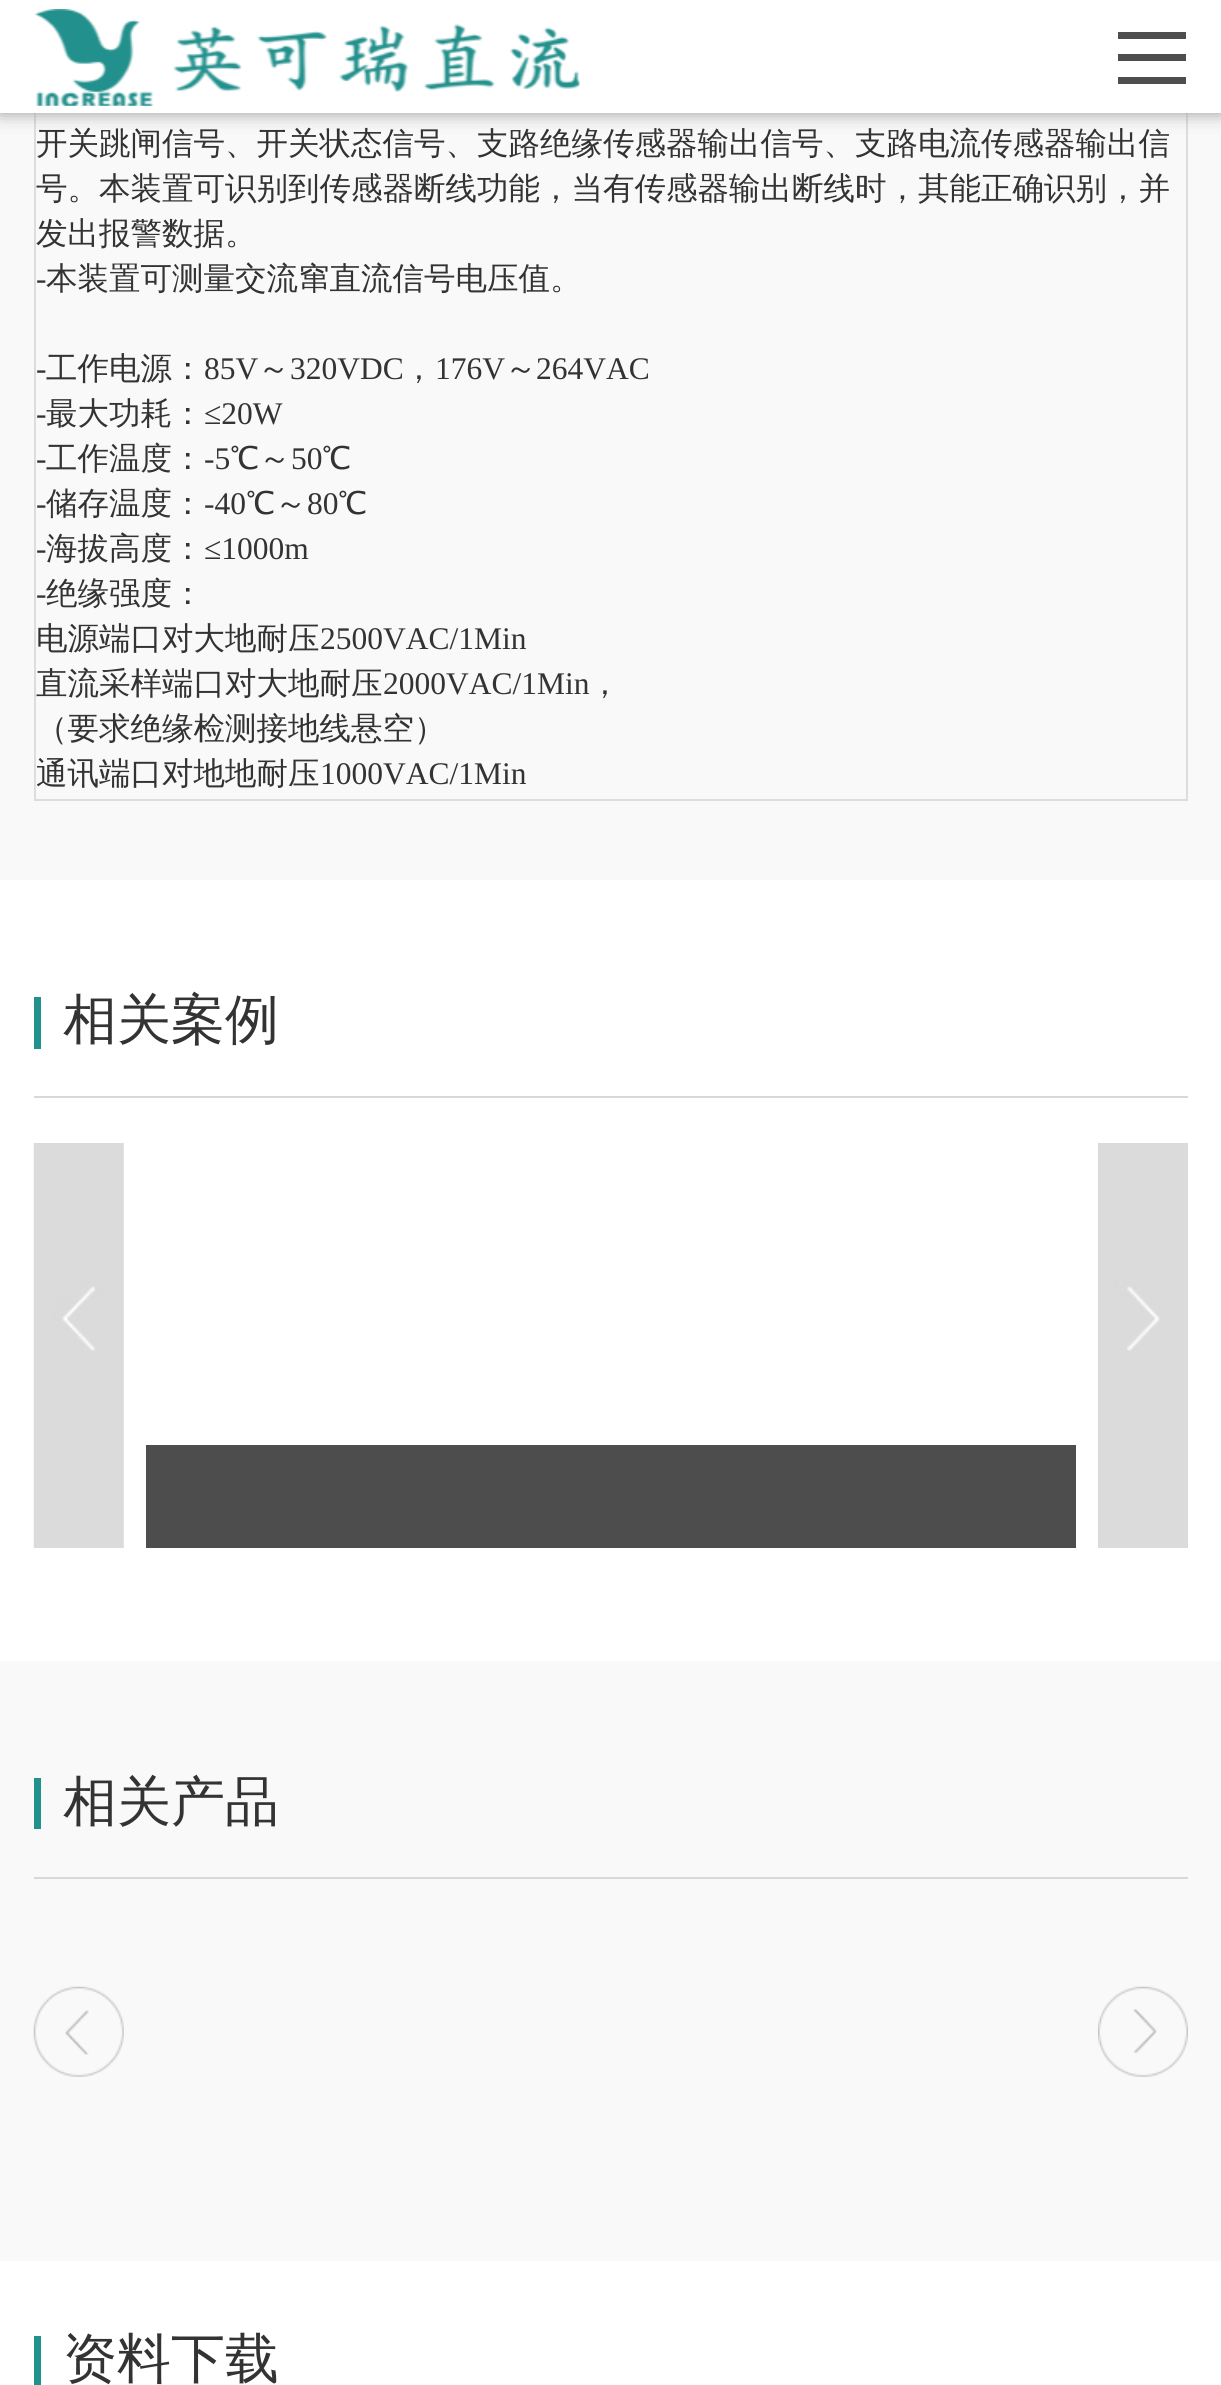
import math
import cairo

surface = cairo.ImageSurface(cairo.Format.RGB24, 1221, 2385)
ctx = cairo.Context(surface)
options = cairo.FontOptions()
options.set_hint_metrics(cairo.HintMetrics.OFF)
options.set_hint_style(cairo.HintStyle.NONE)
ctx.set_font_options(options)
ctx.set_miter_limit(4)


def ink(r, g, b):
    ctx.set_source_rgb(r / 255, g / 255, b / 255)


def write(x, y, s, family, size, color, bold=False, italic=False):
    ctx.select_font_face(family, cairo.FontSlant.ITALIC if italic else cairo.FontSlant.NORMAL, cairo.FontWeight.BOLD if bold else cairo.FontWeight.NORMAL)
    ctx.set_font_size(size)
    ink(*color)
    ctx.move_to(x, y)
    ctx.show_text(s)


def block(x, y, w, h, *color):
    ink(*color)
    ctx.rectangle(x, y, w, h)
    ctx.fill()


def round_path(x, y, w, h, r):
    ctx.new_sub_path()
    for i, (u, v) in enumerate([(x + w - r, y + h - r), (x + r, y + h - r), (x + r, y + r), (x + w - r, y + r)]):
        ctx.arc(u, v, r, i * math.pi / 2, (i + 1) * math.pi / 2)
    ctx.close_path()


def blur_box(x, y, w, h, r, blur, alpha):
    ctx.push_group_with_content(cairo.Content.ALPHA)
    ctx.set_operator(cairo.Operator.SOURCE)
    for i in range(15, -16, -2):
        e = blur * i / 6
        if min(w, h) + 2 * e > 0:
            ctx.set_source_rgba(0, 0, 0, alpha * math.erfc((i - 1) / 8.5) / 2)
            round_path(x - e, y - e, w + 2 * e, h + 2 * e, max(0, min(r + e + blur * .6, min(w, h) / 2 + e)))
            ctx.fill()
    ctx.mask(ctx.pop_group())


def paste(path, x, y, w, h):
    ctx.save()
    ctx.set_source_surface(cairo.ImageSurface.create_from_png(path), x, y)
    ctx.rectangle(x, y, w, h)
    ctx.fill()
    ctx.restore()


s1 = dict(family="WenQuanYi Zen Hei Medium", size=31.5, color=(51, 51, 51))
s2 = dict(family="Liberation Serif", size=31.5, color=(51, 51, 51))
s3 = dict(family="WenQuanYi Zen Hei Medium", size=54, color=(51, 51, 51))

ink(255, 255, 255)
ctx.paint()
block(0, 113, 1221, 767, 249, 249, 249)
ctx.rectangle(35, -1, 1152, 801)
ink(221, 221, 221)
ctx.stroke()
block(34, 0, 1154, 113, 255, 255, 255)
ctx.save()
ctx.set_fill_rule(cairo.FillRule.EVEN_ODD)
ctx.new_path()
ctx.move_to(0, 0)
ctx.line_to(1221, 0)
ctx.line_to(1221, 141)
ctx.line_to(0, 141)
ctx.close_path()
ctx.move_to(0, 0)
ctx.line_to(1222, 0)
ctx.line_to(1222, 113)
ctx.line_to(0, 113)
ctx.close_path()
ctx.clip()
ink(153, 153, 153)
blur_box(0, 0, 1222, 113, 0, 9, 1)
ctx.restore()
paste("pic1.png", 34, 9, 546, 97)
block(1118, 54, 68, 7, 78, 78, 78)
block(1118, 32, 68, 7, 78, 78, 78)
block(1118, 77, 68, 7, 78, 78, 78)
write(36, 154, "开关跳闸信号、开关状态信号、支路绝缘传感器输出信号、支路电流传感器输出信", **s1)
write(36, 199, "号。本装置可识别到传感器断线功能，当有传感器输出断线时，其能正确识别，并", **s1)
write(36, 244, "发出报警数据。", **s1)
write(36, 289, "-", **s2)
write(46, 289, "本装置可测量交流窜直流信号电压值。", **s1)
write(36, 379, "-", **s2)
write(46, 379, "工作电源：", **s1)
write(204, 379, "85V", **s2)
write(258, 379, "～", **s1)
write(290, 379, "320VDC", **s2)
write(435, 379, "176V", **s2)
write(505, 379, "～", **s1)
write(536, 379, "264VAC", **s2)
write(403, 379, "，", **s1)
write(36, 424, "-", **s2)
write(46, 424, "最大功耗：", **s1)
write(204, 424, "≤20W", **s2)
write(36, 469, "-", **s2)
write(46, 469, "工作温度：", **s1)
write(204, 469, "-5", **s2)
write(230, 469, "℃～", **s1)
write(291, 469, "50", **s2)
write(322, 469, "℃", **s1)
write(36, 514, "-", **s2)
write(46, 514, "储存温度：", **s1)
write(204, 514, "-40", **s2)
write(246, 514, "℃～", **s1)
write(307, 514, "80", **s2)
write(338, 514, "℃", **s1)
write(36, 559, "-", **s2)
write(46, 559, "海拔高度：", **s1)
write(204, 559, "≤1000m", **s2)
write(36, 604, "-", **s2)
write(46, 604, "绝缘强度：", **s1)
write(36, 649, "电源端口对大地耐压", **s1)
write(320, 649, "2500VAC/1Min", **s2)
write(36, 694, "直流采样端口对大地耐压", **s1)
write(383, 694, "2000VAC/1Min", **s2)
write(589, 694, "，", **s1)
write(36, 739, "（要求绝缘检测接地线悬空）", **s1)
write(36, 784, "通讯端口对地地耐压", **s1)
write(320, 784, "1000VAC/1Min", **s2)
block(34, 1096, 1154, 2, 216, 216, 216)
block(34, 997, 7, 52, 34, 144, 140)
write(63, 1038, "相关案例", **s3)
paste("pic2.png", 33, 1143, 91, 405)
block(146, 1445, 930, 103, 77, 77, 77)
paste("pic3.png", 1098, 1143, 90, 405)
block(0, 1661, 1221, 600, 249, 249, 249)
block(34, 1877, 1154, 2, 216, 216, 216)
block(34, 1778, 7, 51, 34, 144, 140)
write(63, 1820, "相关产品", **s3)
paste("pic4.png", 33, 1986, 91, 91)
paste("pic5.png", 1098, 1986, 90, 91)
block(34, 2336, 7, 49, 34, 144, 140)
write(63, 2377, "资料下载", **s3)
surface.write_to_png("screenshot.png")
